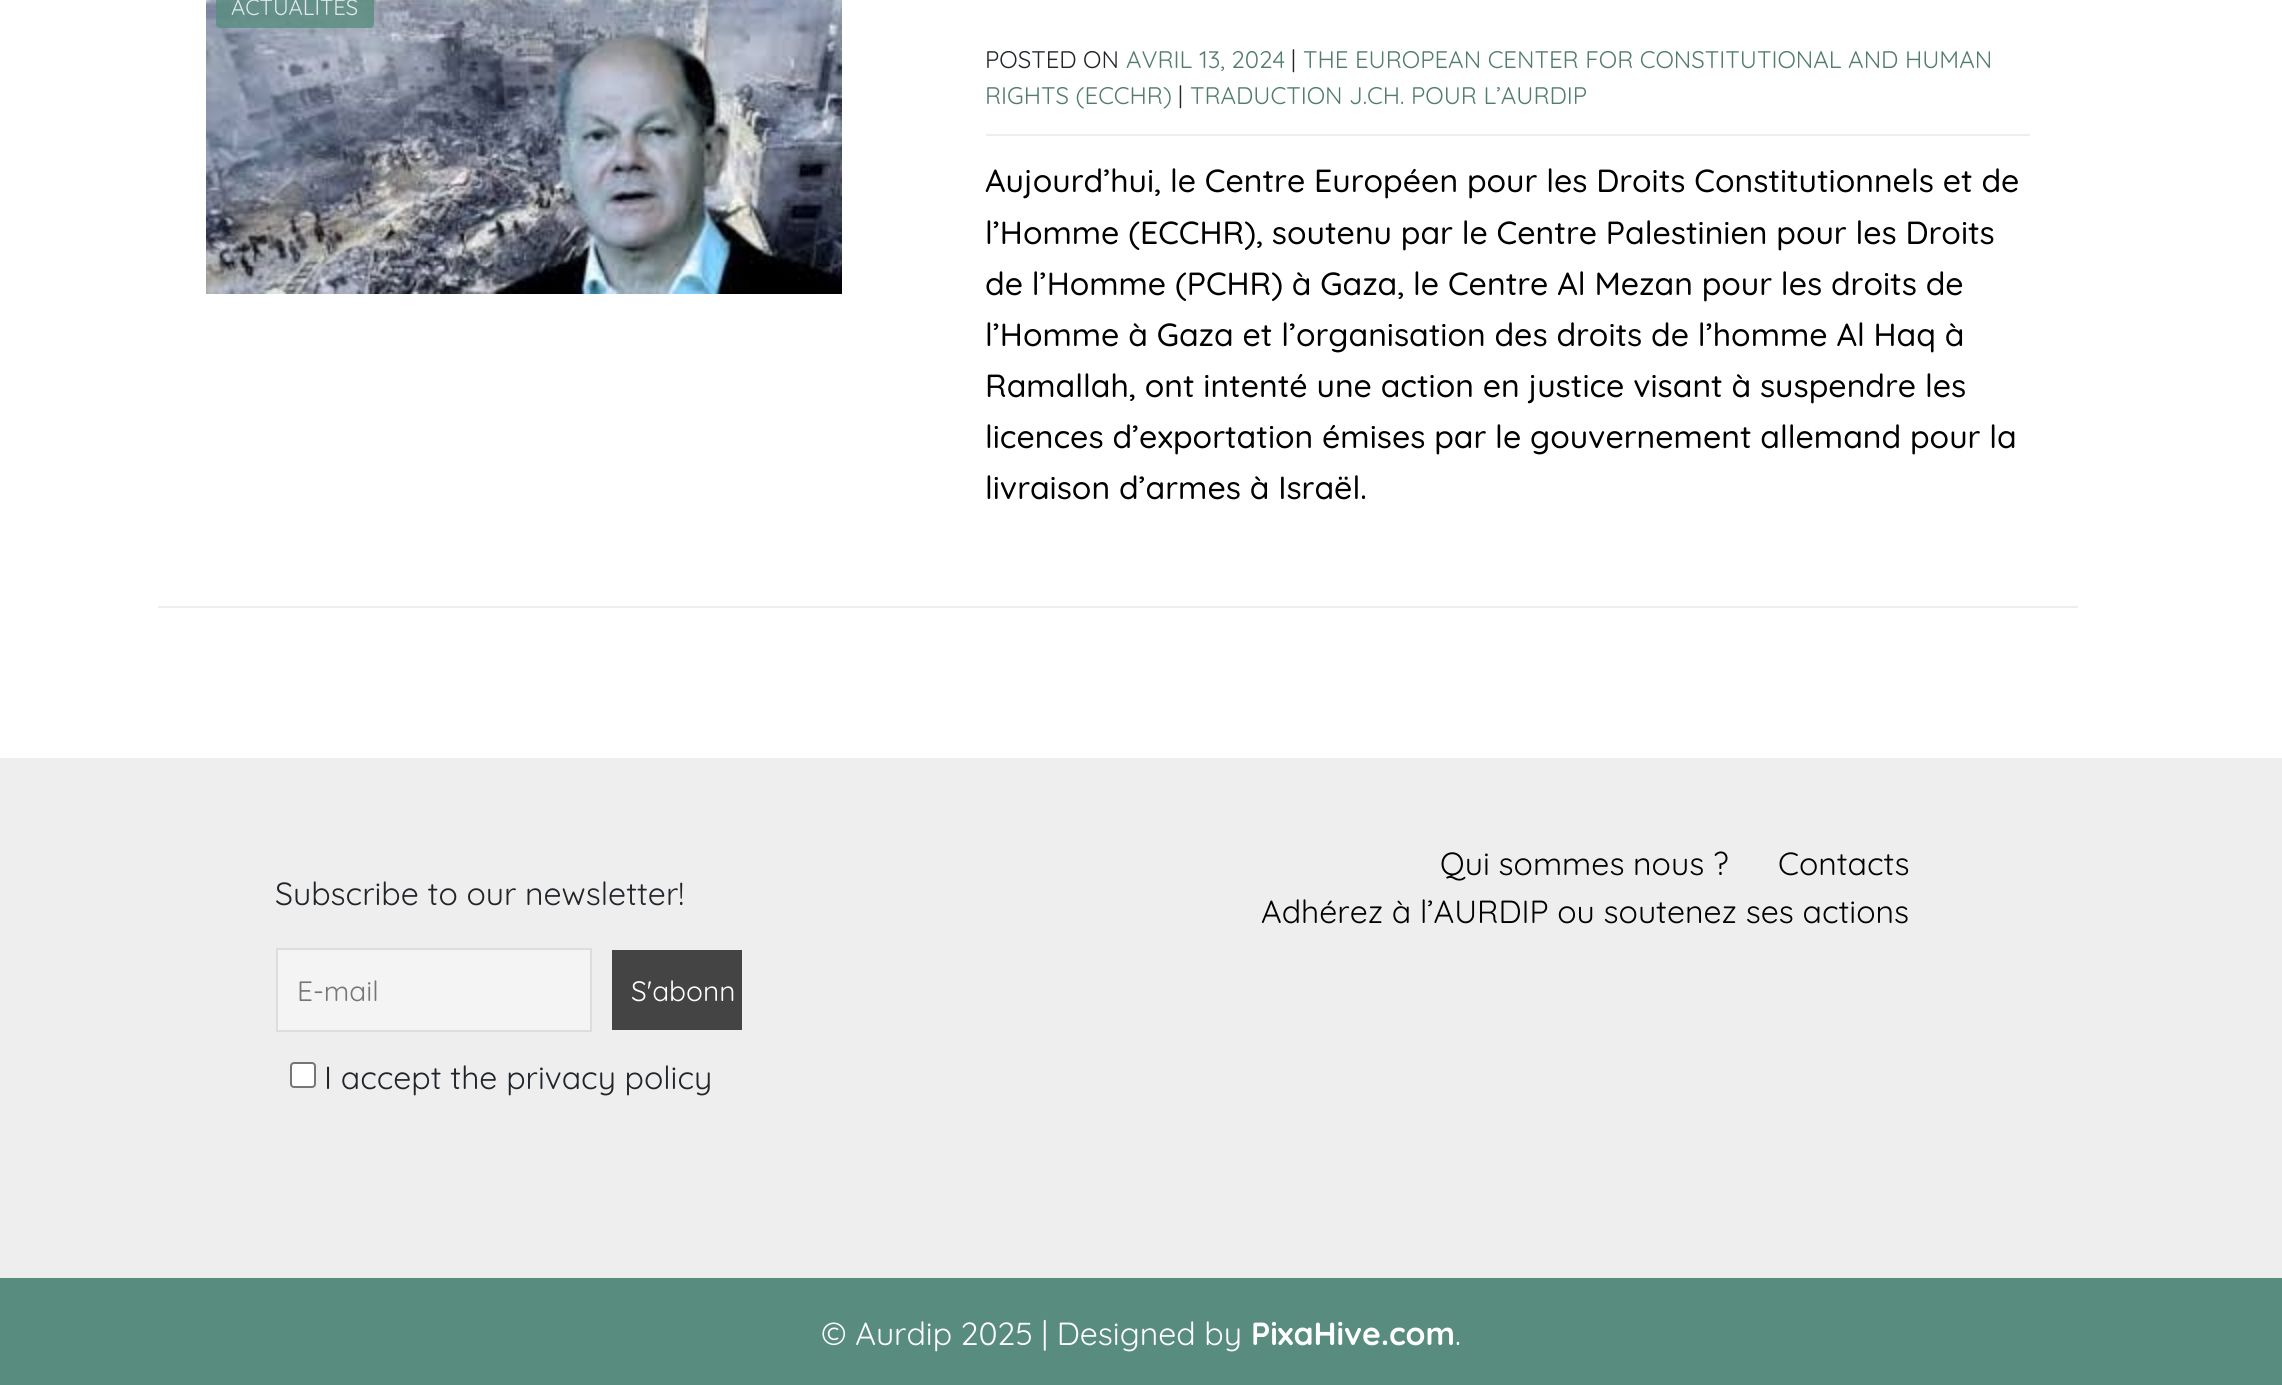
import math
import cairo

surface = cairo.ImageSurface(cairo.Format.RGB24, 2282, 1385)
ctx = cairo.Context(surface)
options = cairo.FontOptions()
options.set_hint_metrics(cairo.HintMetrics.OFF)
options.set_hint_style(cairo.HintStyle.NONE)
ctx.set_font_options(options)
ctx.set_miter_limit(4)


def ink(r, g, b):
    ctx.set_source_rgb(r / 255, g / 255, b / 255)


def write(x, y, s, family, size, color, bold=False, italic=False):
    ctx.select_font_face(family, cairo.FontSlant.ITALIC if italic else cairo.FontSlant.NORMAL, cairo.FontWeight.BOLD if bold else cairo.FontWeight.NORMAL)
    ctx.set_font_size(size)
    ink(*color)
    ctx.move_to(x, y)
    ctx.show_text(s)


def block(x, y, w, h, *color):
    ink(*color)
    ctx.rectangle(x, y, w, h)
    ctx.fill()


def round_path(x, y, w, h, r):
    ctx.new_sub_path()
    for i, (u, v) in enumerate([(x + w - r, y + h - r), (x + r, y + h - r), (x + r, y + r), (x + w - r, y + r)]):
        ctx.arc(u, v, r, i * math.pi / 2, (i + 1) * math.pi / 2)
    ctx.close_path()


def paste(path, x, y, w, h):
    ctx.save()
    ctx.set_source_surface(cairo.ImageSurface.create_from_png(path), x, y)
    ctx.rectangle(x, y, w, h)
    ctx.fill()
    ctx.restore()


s1 = dict(family="Quicksand", size=22, color=(224, 233, 232))
s2 = dict(family="Quicksand", size=24, color=(33, 37, 41))
s3 = dict(family="Quicksand", size=24, color=(82, 124, 112))
s4 = dict(family="Quicksand Medium", size=32, color=(0, 0, 0))
s5 = dict(family="Quicksand", size=32, color=(33, 37, 41))
s6 = dict(family="Quicksand", size=28, color=(117, 117, 117))
s7 = dict(family="Quicksand", size=28, color=(255, 255, 255))
s8 = dict(family="Quicksand", size=32, color=(0, 0, 0))
s9 = dict(family="Quicksand", size=32, color=(255, 255, 255))
s10 = dict(family="Quicksand", size=32, color=(255, 255, 255), bold=True)

ink(255, 255, 255)
ctx.paint()
block(158, 606, 1920, 2, 238, 238, 238)
paste("pic1.png", 206, 0, 636, 294)
ctx.set_source_rgba(0.345, 0.549, 0.494, 0.8)
round_path(216, -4, 158, 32, 4)
ctx.fill()
write(231, 15, "ACTUALITÉS", **s1)
block(986, 134, 1044, 2, 238, 238, 238)
write(985, 68, "POSTED ON", **s2)
write(1126, 68, "AVRIL 13, 2024", **s3)
write(1291, 68, "|", **s2)
write(1303, 68, "THE EUROPEAN CENTER FOR CONSTITUTIONAL AND HUMAN", **s3)
write(985, 104, "RIGHTS (ECCHR)", **s3)
write(1178, 104, "|", **s2)
write(1190, 104, "TRADUCTION J.CH. POUR L’AURDIP", **s3)
write(985, 192, "Aujourd’hui, le Centre Européen pour les Droits Constitutionnels et de", **s4)
write(985, 244, "l’Homme (ECCHR), soutenu par le Centre Palestinien pour les Droits", **s4)
write(985, 295, "de l’Homme (PCHR) à Gaza, le Centre Al Mezan pour les droits de", **s4)
write(985, 346, "l’Homme à Gaza et l’organisation des droits de l’homme Al Haq à", **s4)
write(985, 397, "Ramallah, ont intenté une action en justice visant à suspendre les", **s4)
write(985, 448, "licences d’exportation émises par le gouvernement allemand pour la", **s4)
write(985, 499, "livraison d’armes à Israël.", **s4)
block(0, 758, 2282, 520, 238, 238, 238)
write(275, 905, "Subscribe to our newsletter!", **s5)
ink(244, 244, 244)
ctx.rectangle(277, 949, 314, 82)
ctx.fill_preserve()
ink(221, 221, 221)
ctx.stroke()
write(297, 1001, "E-mail", **s6)
block(612, 950, 130, 80, 68, 68, 68)
write(631, 1001, "S'abonn", **s7)
round_path(291, 1063, 24, 24, 3)
ctx.fill_preserve()
ink(118, 118, 118)
ctx.stroke()
write(324, 1089, "I accept the privacy policy", **s5)
write(1440, 875, "Qui sommes nous ?", **s8)
write(1778, 875, "Contacts", **s8)
write(1261, 923, "Adhérez à l’AURDIP ou soutenez ses actions", **s8)
block(0, 1278, 2282, 107, 88, 140, 126)
write(821, 1345, "© Aurdip 2025 | Designed by", **s9)
write(1251, 1345, "PixaHive.com", **s10)
write(1455, 1345, ".", **s9)
surface.write_to_png("screenshot.png")
